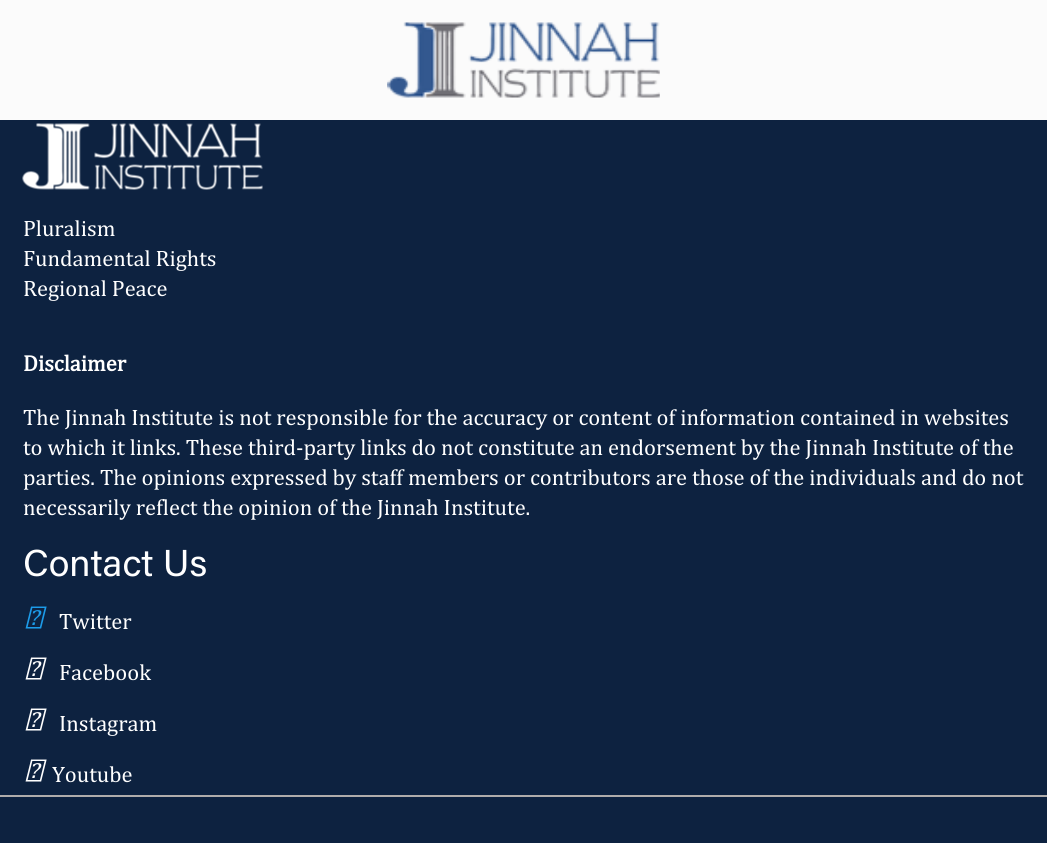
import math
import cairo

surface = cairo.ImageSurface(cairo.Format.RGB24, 1047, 843)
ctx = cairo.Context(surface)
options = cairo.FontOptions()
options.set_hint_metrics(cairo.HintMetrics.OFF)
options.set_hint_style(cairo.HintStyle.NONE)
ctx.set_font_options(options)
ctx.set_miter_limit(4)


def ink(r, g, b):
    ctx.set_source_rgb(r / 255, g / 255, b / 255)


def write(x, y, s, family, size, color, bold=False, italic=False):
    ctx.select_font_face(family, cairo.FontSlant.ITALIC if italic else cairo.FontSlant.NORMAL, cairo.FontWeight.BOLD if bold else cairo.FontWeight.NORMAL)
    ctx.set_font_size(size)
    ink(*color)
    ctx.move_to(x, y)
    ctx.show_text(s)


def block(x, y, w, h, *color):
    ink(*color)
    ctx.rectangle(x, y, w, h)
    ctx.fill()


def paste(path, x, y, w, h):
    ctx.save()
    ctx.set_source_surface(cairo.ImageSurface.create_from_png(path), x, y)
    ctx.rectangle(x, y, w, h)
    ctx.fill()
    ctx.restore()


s1 = dict(family="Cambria", size=22.5, color=(255, 255, 255))
s2 = dict(family="Cambria", size=22.5, color=(255, 255, 255), bold=True)
s3 = dict(family="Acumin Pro", size=37.5, color=(255, 255, 255))

ink(13, 34, 64)
ctx.paint()
block(0, 0, 1047, 120, 251, 251, 251)
paste("pic1.png", 387, 22, 273, 76)
paste("pic2.png", 22, 123, 241, 67)
write(23, 236, "Pluralism", **s1)
write(23, 266, "Fundamental Rights", **s1)
write(23, 296, "Regional Peace", **s1)
write(23, 371, "Disclaimer", **s2)
write(23, 425, "The Jinnah Institute is not responsible for the accuracy or content of information contained in websites", **s1)
write(23, 455, "to which it links. These third-party links do not constitute an endorsement by the Jinnah Institute of the", **s1)
write(23, 485, "parties. The opinions expressed by staff members or contributors are those of the individuals and do not", **s1)
write(23, 515, "necessarily reflect the opinion of the Jinnah Institute.", **s1)
block(0, 795, 1047, 2, 175, 172, 171)
write(23, 576, "Contact Us", **s3)
paste("pic3.png", 25, 606, 22, 23)
write(59, 629, "Twitter", **s1)
paste("pic4.png", 25, 657, 22, 23)
write(59, 680, "Facebook", **s1)
paste("pic4.png", 25, 708, 22, 23)
write(59, 731, "Instagram", **s1)
paste("pic4.png", 25, 759, 22, 23)
write(52, 782, "Youtube", **s1)
surface.write_to_png("screenshot.png")
